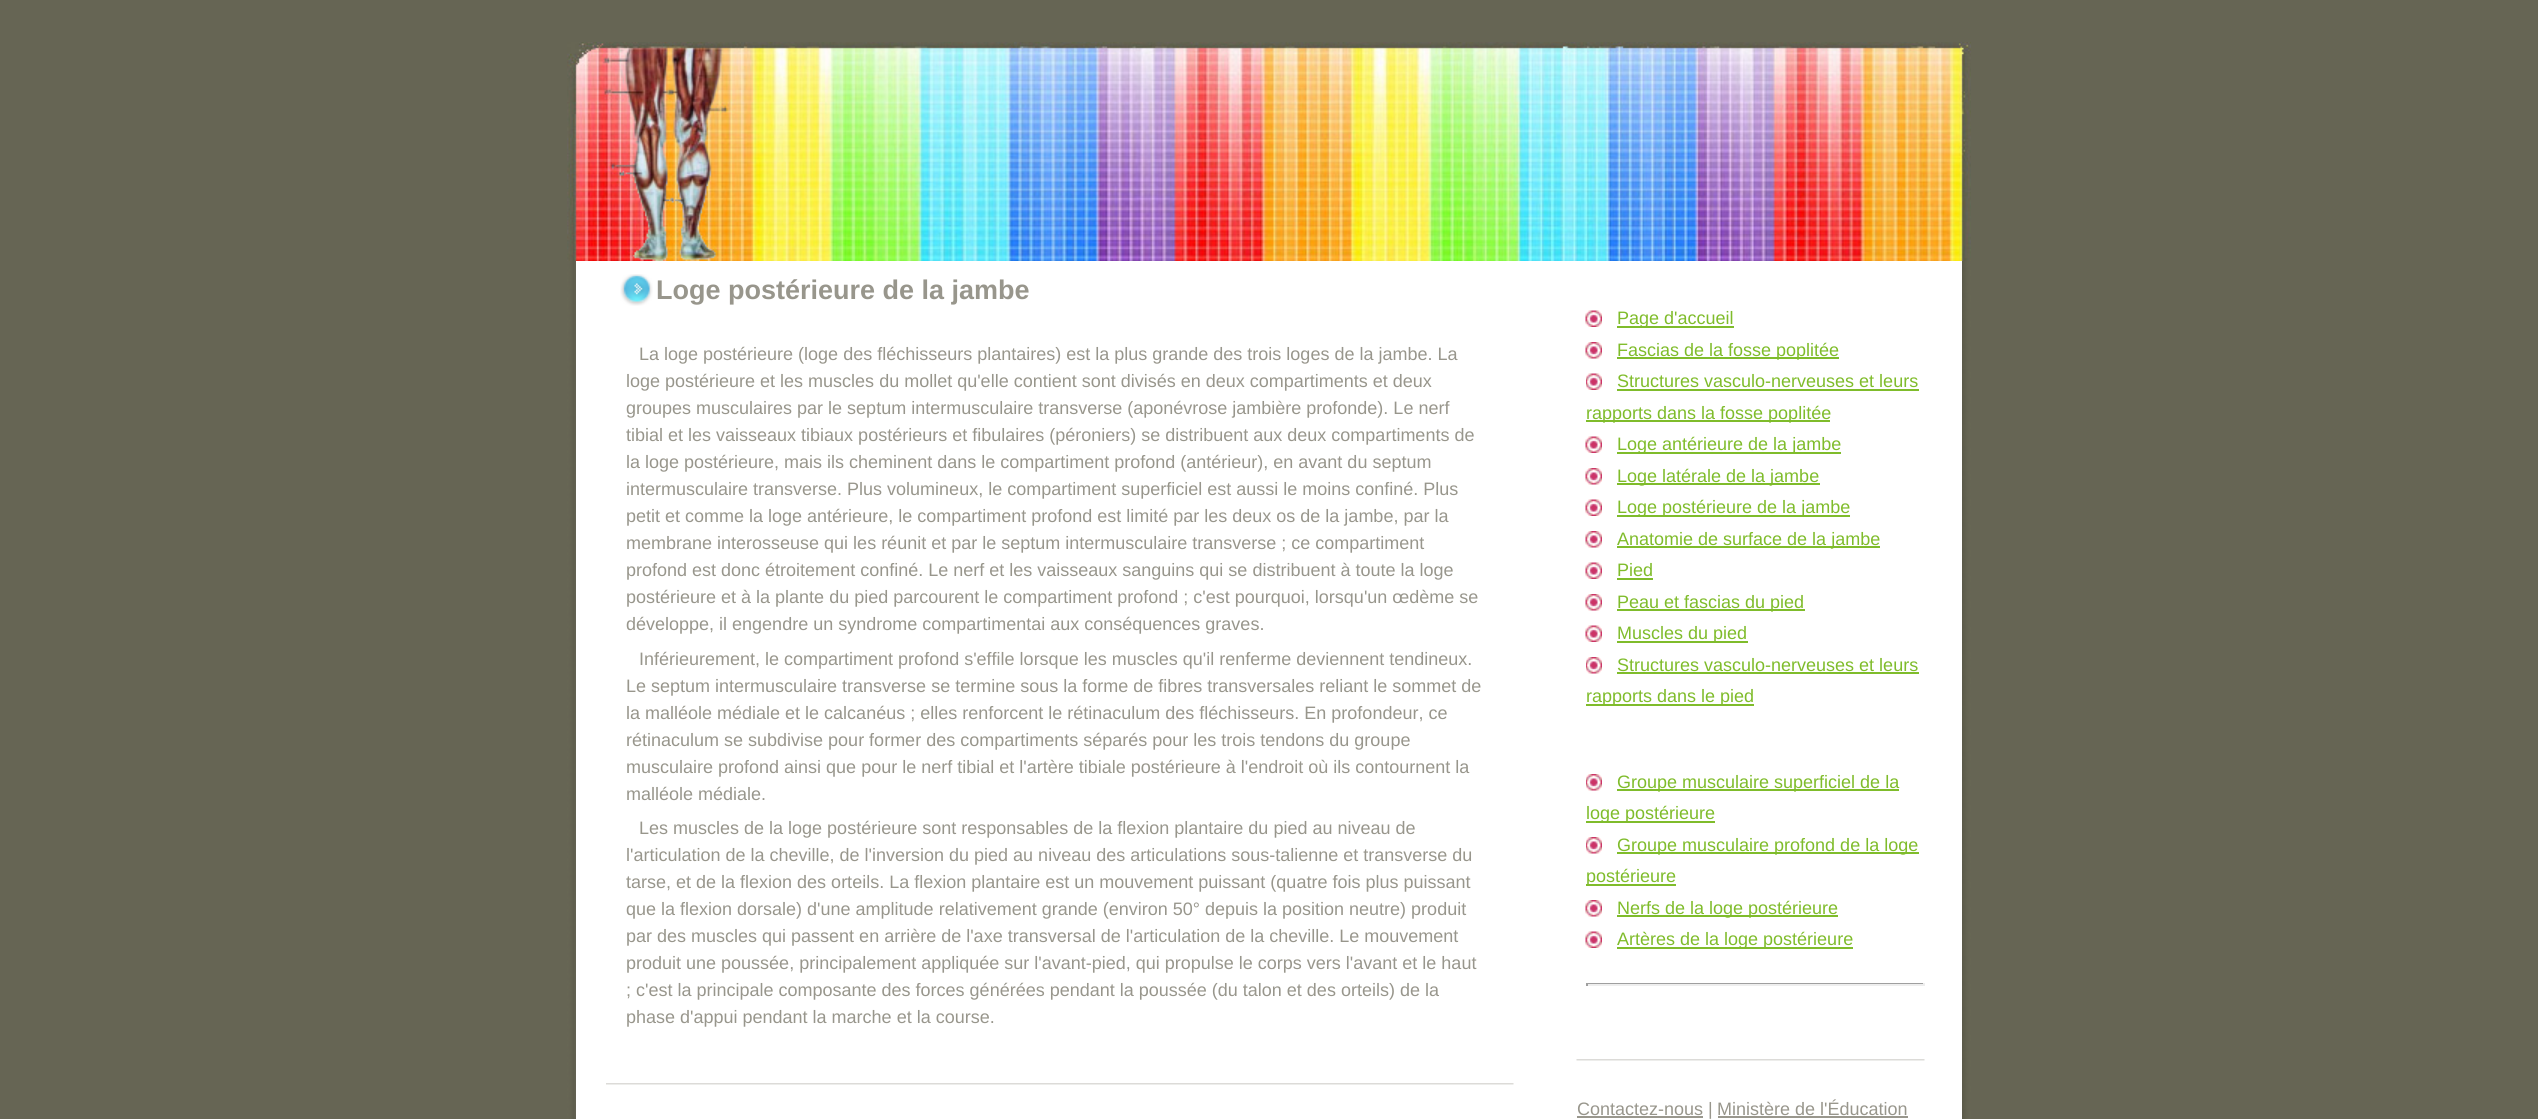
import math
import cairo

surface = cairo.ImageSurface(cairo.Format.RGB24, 2538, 1119)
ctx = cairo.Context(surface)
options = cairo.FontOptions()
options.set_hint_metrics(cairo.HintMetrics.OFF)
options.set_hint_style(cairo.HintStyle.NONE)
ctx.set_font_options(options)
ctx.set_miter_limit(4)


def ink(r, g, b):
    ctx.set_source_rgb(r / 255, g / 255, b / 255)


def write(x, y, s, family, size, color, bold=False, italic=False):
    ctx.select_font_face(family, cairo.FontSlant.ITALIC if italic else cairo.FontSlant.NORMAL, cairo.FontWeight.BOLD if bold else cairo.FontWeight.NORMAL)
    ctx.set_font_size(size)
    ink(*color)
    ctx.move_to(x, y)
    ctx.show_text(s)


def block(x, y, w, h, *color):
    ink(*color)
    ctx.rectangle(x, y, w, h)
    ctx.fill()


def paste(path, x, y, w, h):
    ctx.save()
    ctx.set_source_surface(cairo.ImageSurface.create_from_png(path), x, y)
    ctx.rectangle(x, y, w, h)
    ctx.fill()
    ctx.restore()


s1 = dict(family="Liberation Sans", size=27, color=(152, 150, 140), bold=True)
s2 = dict(family="Liberation Sans", size=18, color=(152, 150, 140))
s3 = dict(family="Liberation Sans", size=18, color=(127, 188, 43))

ink(102, 101, 84)
ctx.paint()
paste("pic1.png", 567, 42, 1404, 219)
block(576, 261, 1386, 858, 255, 255, 255)
paste("pic2.png", 1962, 261, 9, 858)
paste("pic3.png", 567, 261, 9, 858)
paste("pic4.png", 620, 274, 33, 32)
write(656, 299, "Loge postérieure de la jambe", **s1)
write(639, 360, "La loge postérieure (loge des fléchisseurs plantaires) est la plus grande des trois loges de la jambe. La", **s2)
write(626, 387, "loge postérieure et les muscles du mollet qu'elle contient sont divisés en deux compartiments et deux", **s2)
write(626, 414, "groupes musculaires par le septum intermusculaire transverse (aponévrose jambière profonde). Le nerf", **s2)
write(626, 441, "tibial et les vaisseaux tibiaux postérieurs et fibulaires (péroniers) se distribuent aux deux compartiments de", **s2)
write(626, 468, "la loge postérieure, mais ils cheminent dans le compartiment profond (antérieur), en avant du septum", **s2)
write(626, 495, "intermusculaire transverse. Plus volumineux, le compartiment superficiel est aussi le moins confiné. Plus", **s2)
write(626, 522, "petit et comme la loge antérieure, le compartiment profond est limité par les deux os de la jambe, par la", **s2)
write(626, 549, "membrane interosseuse qui les réunit et par le septum intermusculaire transverse ; ce compartiment", **s2)
write(626, 576, "profond est donc étroitement confiné. Le nerf et les vaisseaux sanguins qui se distribuent à toute la loge", **s2)
write(626, 603, "postérieure et à la plante du pied parcourent le compartiment profond ; c'est pourquoi, lorsqu'un œdème se", **s2)
write(626, 630, "développe, il engendre un syndrome compartimentai aux conséquences graves.", **s2)
write(639, 665, "Inférieurement, le compartiment profond s'effile lorsque les muscles qu'il renferme deviennent tendineux.", **s2)
write(626, 692, "Le septum intermusculaire transverse se termine sous la forme de fibres transversales reliant le sommet de", **s2)
write(626, 719, "la malléole médiale et le calcanéus ; elles renforcent le rétinaculum des fléchisseurs. En profondeur, ce", **s2)
write(626, 746, "rétinaculum se subdivise pour former des compartiments séparés pour les trois tendons du groupe", **s2)
write(626, 773, "musculaire profond ainsi que pour le nerf tibial et l'artère tibiale postérieure à l'endroit où ils contournent la", **s2)
write(626, 800, "malléole médiale.", **s2)
write(639, 834, "Les muscles de la loge postérieure sont responsables de la flexion plantaire du pied au niveau de", **s2)
write(626, 861, "l'articulation de la cheville, de l'inversion du pied au niveau des articulations sous-talienne et transverse du", **s2)
write(626, 888, "tarse, et de la flexion des orteils. La flexion plantaire est un mouvement puissant (quatre fois plus puissant", **s2)
write(626, 915, "que la flexion dorsale) d'une amplitude relativement grande (environ 50° depuis la position neutre) produit", **s2)
write(626, 942, "par des muscles qui passent en arrière de l'axe transversal de l'articulation de la cheville. Le mouvement", **s2)
write(626, 969, "produit une poussée, principalement appliquée sur l'avant-pied, qui propulse le corps vers l'avant et le haut", **s2)
write(626, 996, "; c'est la principale composante des forces générées pendant la poussée (du talon et des orteils) de la", **s2)
write(626, 1023, "phase d'appui pendant la marche et la course.", **s2)
paste("pic5.png", 606, 1083, 908, 2)
paste("pic6.png", 1585, 310, 17, 17)
block(1617, 326, 117, 2, 127, 188, 43)
write(1617, 324, "Page d'accueil", **s3)
paste("pic7.png", 1585, 342, 17, 17)
block(1617, 357, 222, 2, 127, 188, 43)
write(1617, 356, "Fascias de la fosse poplitée", **s3)
paste("pic8.png", 1586, 373, 16, 17)
write(1617, 387, "Structures vasculo-nerveuses et leurs", **s3)
block(1617, 389, 302, 2, 127, 188, 43)
block(1586, 420, 244, 2, 127, 188, 43)
write(1586, 419, "rapports dans la fosse poplitée", **s3)
paste("pic6.png", 1585, 436, 17, 17)
block(1617, 452, 224, 2, 127, 188, 43)
write(1617, 450, "Loge antérieure de la jambe", **s3)
paste("pic7.png", 1585, 468, 17, 17)
block(1617, 483, 203, 2, 127, 188, 43)
write(1617, 482, "Loge latérale de la jambe", **s3)
paste("pic6.png", 1585, 499, 17, 17)
block(1617, 515, 233, 2, 127, 188, 43)
write(1617, 513, "Loge postérieure de la jambe", **s3)
paste("pic7.png", 1585, 531, 17, 17)
block(1617, 546, 263, 2, 127, 188, 43)
write(1617, 545, "Anatomie de surface de la jambe", **s3)
paste("pic6.png", 1585, 562, 17, 17)
write(1617, 576, "Pied", **s3)
block(1617, 578, 36, 2, 127, 188, 43)
paste("pic7.png", 1585, 594, 17, 17)
block(1617, 609, 188, 2, 127, 188, 43)
write(1617, 608, "Peau et fascias du pied", **s3)
paste("pic6.png", 1585, 625, 17, 17)
block(1617, 641, 131, 2, 127, 188, 43)
write(1617, 639, "Muscles du pied", **s3)
paste("pic9.png", 1586, 657, 16, 17)
write(1617, 671, "Structures vasculo-nerveuses et leurs", **s3)
block(1617, 672, 302, 2, 127, 188, 43)
block(1586, 704, 168, 2, 127, 188, 43)
write(1586, 702, "rapports dans le pied", **s3)
paste("pic9.png", 1586, 774, 16, 17)
block(1617, 789, 282, 2, 127, 188, 43)
write(1617, 788, "Groupe musculaire superficiel de la", **s3)
block(1586, 821, 129, 2, 127, 188, 43)
write(1586, 819, "loge postérieure", **s3)
paste("pic9.png", 1586, 837, 16, 17)
block(1617, 852, 302, 2, 127, 188, 43)
write(1617, 851, "Groupe musculaire profond de la loge", **s3)
block(1586, 884, 90, 2, 127, 188, 43)
write(1586, 882, "postérieure", **s3)
paste("pic7.png", 1585, 900, 17, 17)
block(1617, 915, 221, 2, 127, 188, 43)
write(1617, 914, "Nerfs de la loge postérieure", **s3)
paste("pic6.png", 1585, 931, 17, 17)
block(1617, 947, 236, 2, 127, 188, 43)
write(1617, 945, "Artères de la loge postérieure", **s3)
block(1586, 983, 339, 1, 159, 159, 159)
block(1923, 983, 2, 3, 238, 238, 238)
block(1586, 984, 339, 2, 238, 238, 238)
block(1586, 983, 2, 3, 159, 159, 159)
paste("pic10.png", 1576, 1059, 349, 2)
write(1577, 1115, "Contactez-nous", **s2)
block(1577, 1116, 126, 2, 153, 151, 141)
write(1708, 1115, "|", **s2)
write(1717, 1115, "Ministère de l'Éducation", **s2)
block(1718, 1116, 190, 2, 153, 151, 141)
surface.write_to_png("screenshot.png")
